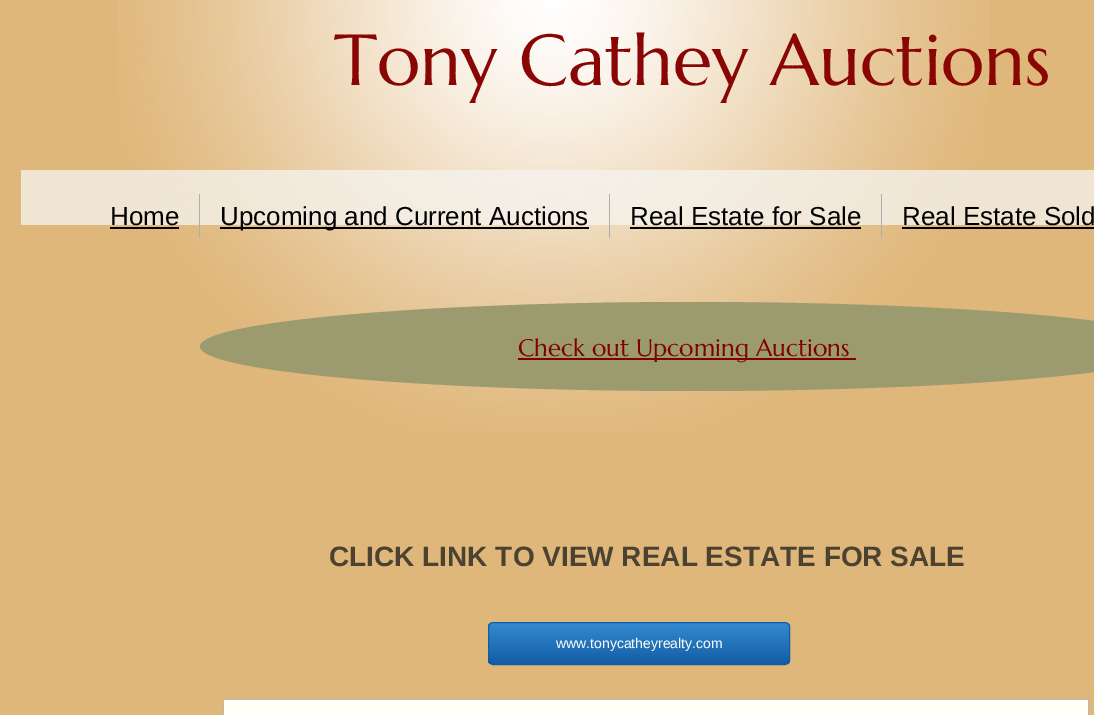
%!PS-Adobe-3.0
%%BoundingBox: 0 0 1094 715
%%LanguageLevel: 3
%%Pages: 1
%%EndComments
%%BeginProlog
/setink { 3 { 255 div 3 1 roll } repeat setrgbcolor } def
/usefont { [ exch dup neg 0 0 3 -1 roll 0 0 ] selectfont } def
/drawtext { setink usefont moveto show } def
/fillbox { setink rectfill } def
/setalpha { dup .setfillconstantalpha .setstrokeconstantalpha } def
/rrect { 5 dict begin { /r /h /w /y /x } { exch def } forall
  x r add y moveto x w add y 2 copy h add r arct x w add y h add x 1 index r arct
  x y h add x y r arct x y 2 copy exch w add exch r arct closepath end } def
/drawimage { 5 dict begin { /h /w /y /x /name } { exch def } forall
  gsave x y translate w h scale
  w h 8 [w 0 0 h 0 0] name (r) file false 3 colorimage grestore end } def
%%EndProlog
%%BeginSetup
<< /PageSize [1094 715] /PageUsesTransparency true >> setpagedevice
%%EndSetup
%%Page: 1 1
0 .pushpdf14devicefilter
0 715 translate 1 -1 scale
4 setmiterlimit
0 0 1094 715 223 183 122 fillbox
(assets/img1.rgb) 117 0 873 433 drawimage
(Tony Cathey Auctions) 334 85 /Marcellus-Regular 72 137 6 5 drawtext
0.77 setalpha
21 170 1073 55 245 243 238 fillbox
1 setalpha
199 194 1 44 174 174 174 fillbox
(Home) 110 225 /LiberationSans-Regular 26 0 0 0 drawtext
110 227 69 2 0 0 0 fillbox
609 194 1 44 174 174 174 fillbox
220 227 369 2 0 0 0 fillbox
(Upcoming and Current Auctions) 220 225 /LiberationSans-Regular 26 0 0 0 drawtext
881 194 1 44 174 174 174 fillbox
(Real Estate for Sale) 630 225 /LiberationSans-Regular 26 0 0 0 drawtext
630 227 231 2 0 0 0 fillbox
(Real Estate Sold) 902 225 /LiberationSans-Regular 26 0 0 0 drawtext
902 227 192 2 0 0 0 fillbox
155 155 111 setink
692 302 moveto 963.5 302 1184 322 1184 346.5 curveto 1184 371 963.5 391 692 391 curveto 420.5 391 200 371 200 346.5 curveto 200 322 420.5 302 692 302 curveto closepath fill
518 358 338 2 128 0 0 fillbox
(Check out Upcoming Auctions) 518 356 /Marcellus-Regular 24 128 0 0 drawtext
(CLICK LINK TO VIEW REAL ESTATE FOR SALE) 329 566 /LiberationSans-Bold 28 75 66 50 drawtext
gsave
488 622 302 43 5 rrect clip newpath
gsave 488 623 moveto 790 623 lineto 790 664 lineto 488 664 lineto closepath clip newpath
<< /ShadingType 2 /ColorSpace /DeviceRGB /Coords [639 623 639 664] /Extend [true true] /Function << /FunctionType 2 /Domain [0 1] /C0 [0.204 0.545 0.812] /C1 [0.071 0.361 0.651] /N 1 >> >> shfill grestore
grestore
18 92 166 setink
488.5 622.5 301 42 4.5 rrect stroke
(www.tonycatheyrealty.com) 556 648 /LiberationSans-Regular 14 255 255 255 drawtext
191 184 169 setink
223.5 699.5 865 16 rectstroke
224 700 864 15 254 255 247 fillbox
.poppdf14devicefilter showpage
%%EOF
